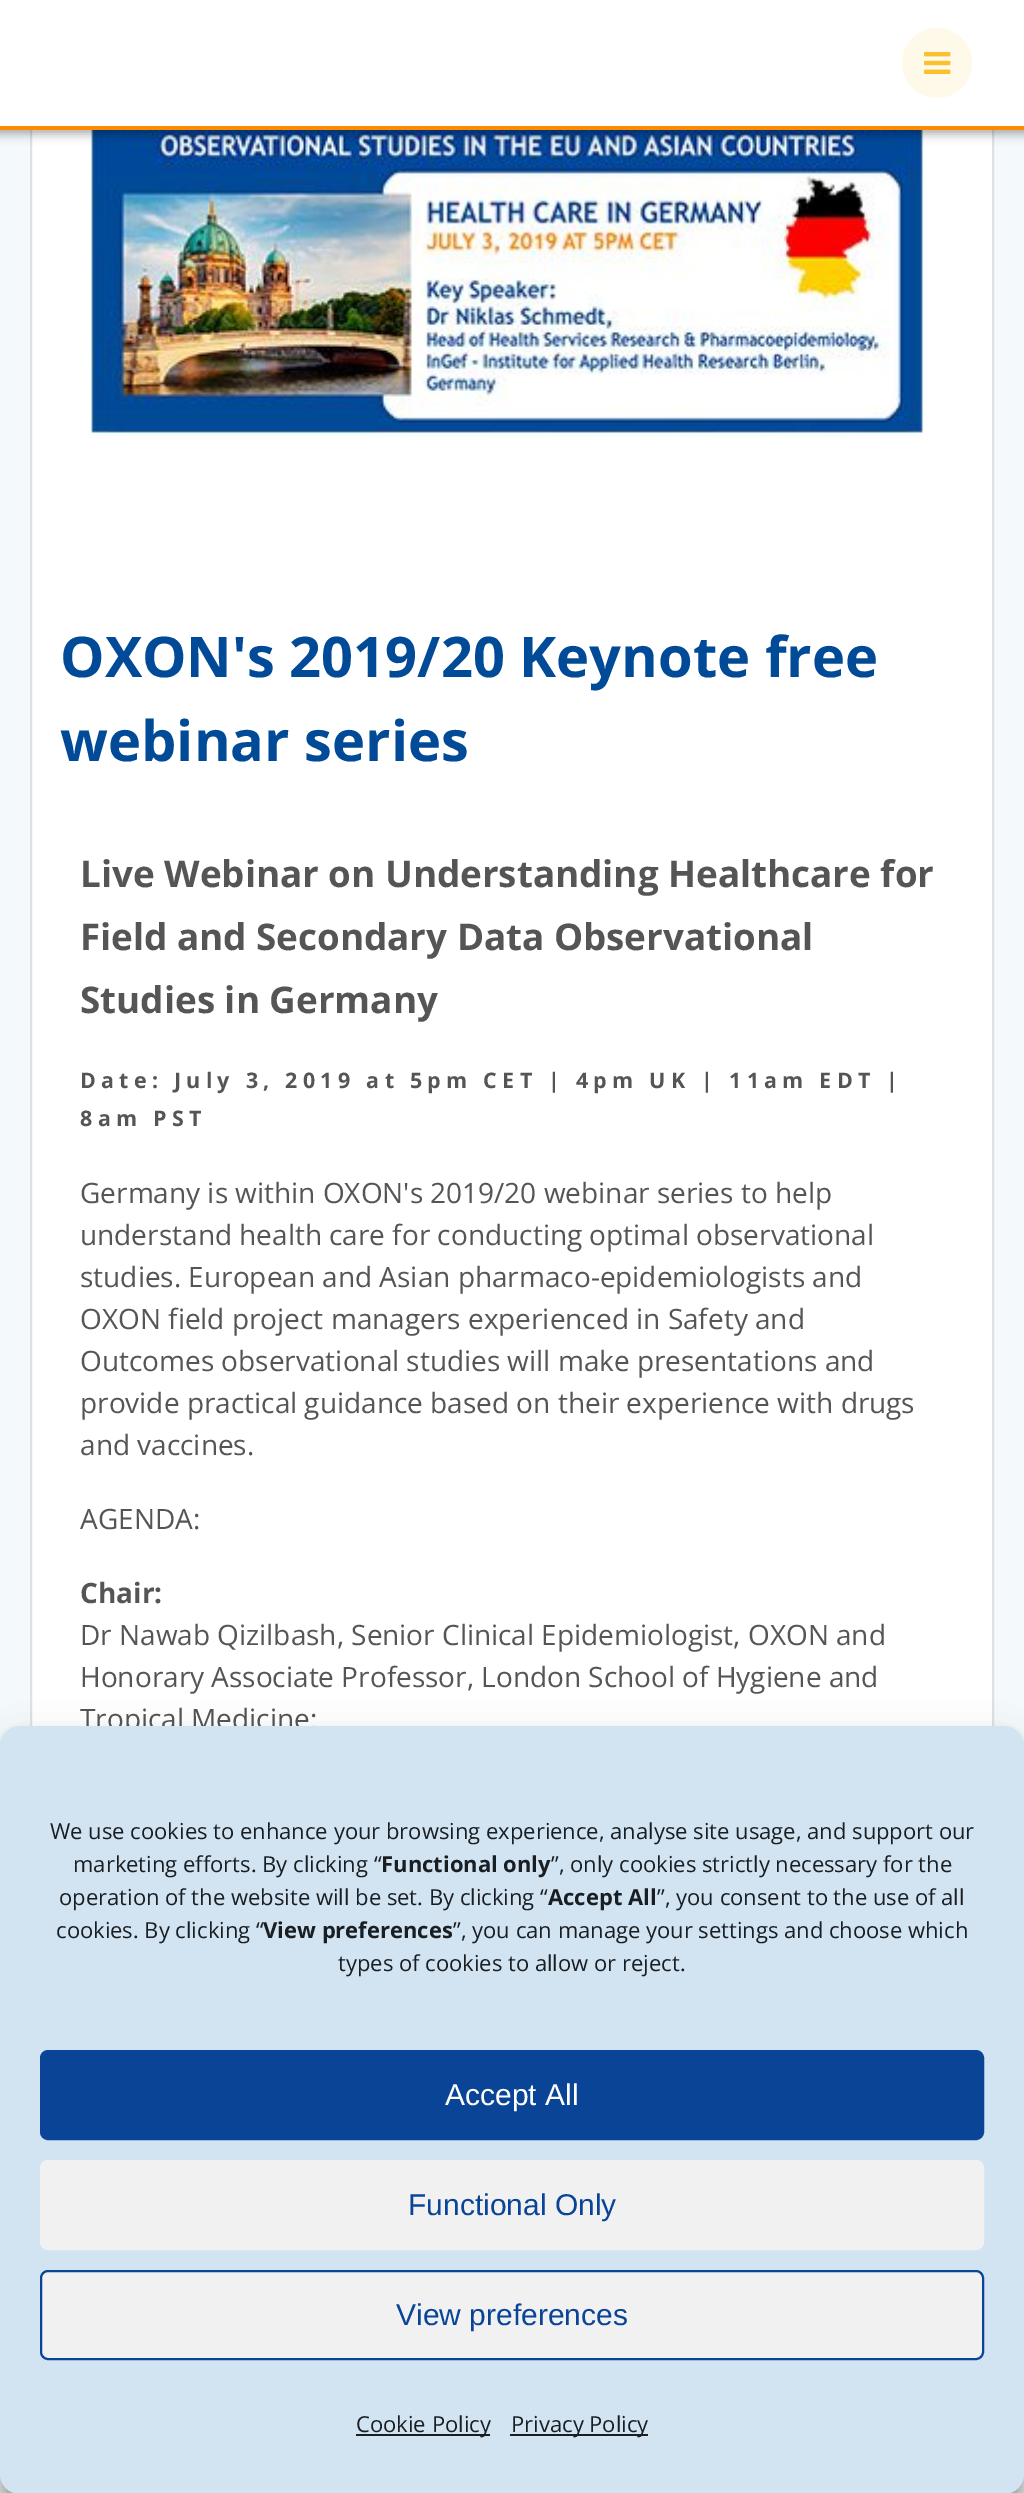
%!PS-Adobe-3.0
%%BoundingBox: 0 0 1024 2493
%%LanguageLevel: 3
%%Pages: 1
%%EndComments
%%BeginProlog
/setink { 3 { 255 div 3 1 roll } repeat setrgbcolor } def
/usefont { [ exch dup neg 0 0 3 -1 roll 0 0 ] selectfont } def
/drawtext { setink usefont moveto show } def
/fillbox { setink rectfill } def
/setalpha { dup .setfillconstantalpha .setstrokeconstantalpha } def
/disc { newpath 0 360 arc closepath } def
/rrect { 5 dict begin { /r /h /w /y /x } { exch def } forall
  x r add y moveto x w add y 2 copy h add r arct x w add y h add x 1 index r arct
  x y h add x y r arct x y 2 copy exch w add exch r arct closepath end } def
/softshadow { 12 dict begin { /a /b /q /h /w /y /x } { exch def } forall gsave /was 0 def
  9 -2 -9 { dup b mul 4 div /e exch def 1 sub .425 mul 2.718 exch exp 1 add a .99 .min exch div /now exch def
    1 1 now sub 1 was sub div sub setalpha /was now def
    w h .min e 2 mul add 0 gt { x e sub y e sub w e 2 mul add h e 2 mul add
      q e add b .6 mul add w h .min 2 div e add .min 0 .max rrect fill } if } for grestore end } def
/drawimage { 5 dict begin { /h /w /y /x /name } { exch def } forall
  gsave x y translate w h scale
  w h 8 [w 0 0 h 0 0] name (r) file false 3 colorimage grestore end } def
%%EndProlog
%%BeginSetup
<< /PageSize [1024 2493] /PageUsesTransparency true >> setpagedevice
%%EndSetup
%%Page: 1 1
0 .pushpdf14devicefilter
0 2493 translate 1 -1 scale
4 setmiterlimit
0 0 1024 2493 244 249 252 fillbox
32 130 960 1596 255 255 255 fillbox
224 225 225 setink
2 setlinewidth
31 -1 962 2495 rectstroke
(assets/img2.rgb) 89 130 836 309 drawimage
0 0 0 setink
-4 -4 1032 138 0 5 0.33 softshadow
0 0 1024 126 255 255 255 fillbox
0 126 1024 4 255 137 0 fillbox
255 249 234 setink
937 63 35 disc fill
(assets/img1.rgb) 924 52 27 22 drawimage
(OXON's 2019/20 Keynote free) 60 677 /OpenSans-Bold 56 0 74 151 drawtext
(webinar series) 60 761 /OpenSans-Bold 56 0 74 151 drawtext
(Live Webinar on Understanding Healthcare for) 80 887 /OpenSans-Bold 36.75 85 85 85 drawtext
(Field and Secondary Data Observational) 80 950 /OpenSans-Bold 36.75 85 85 85 drawtext
(Studies in Germany) 80 1013 /OpenSans-Bold 36.75 85 85 85 drawtext
/OpenSans-Bold 21.45 usefont
80 1088 moveto 5.25 0 (Date: July 3, 2019 at 5pm CET | 4pm UK | 11am EDT |) ashow
80 1126 moveto 5.25 0 (8am PST) ashow
(Germany is within OXON's 2019/20 webinar series to help) 80 1203 /OpenSans-Regular 28 85 85 85 drawtext
(understand health care for conducting optimal observational) 80 1245 /OpenSans-Regular 28 85 85 85 drawtext
(studies. European and Asian pharmaco-epidemiologists and) 80 1287 /OpenSans-Regular 28 85 85 85 drawtext
(OXON field project managers experienced in Safety and) 80 1329 /OpenSans-Regular 28 85 85 85 drawtext
(Outcomes observational studies will make presentations and) 80 1371 /OpenSans-Regular 28 85 85 85 drawtext
(provide practical guidance based on their experience with drugs) 80 1413 /OpenSans-Regular 28 85 85 85 drawtext
(and vaccines.) 80 1455 /OpenSans-Regular 28 85 85 85 drawtext
(AGENDA:) 80 1529 /OpenSans-Regular 28 85 85 85 drawtext
(Chair:) 80 1603 /OpenSans-Bold 28 85 85 85 drawtext
(Dr Nawab Qizilbash, Senior Clinical Epidemiologist, OXON and) 80 1645 /OpenSans-Regular 28 85 85 85 drawtext
(Honorary Associate Professor, London School of Hygiene and) 80 1687 /OpenSans-Regular 28 85 85 85 drawtext
(Tropical Medicine:) 80 1729 /OpenSans-Regular 28 85 85 85 drawtext
0 0 0 setink
0 1738 1024 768 20 6 0.23 softshadow
0 1746 1024 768 20 20 0.19 softshadow
210 228 242 setink
0 1726 1024 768 20 rrect fill
(We use cookies to enhance your browsing experience, analyse site usage, and support our) 50 1839 /OpenSans-Regular 22 25 30 35 drawtext
(marketing efforts. By clicking “) 73 1872 /OpenSans-Regular 22 25 30 35 drawtext
(Functional only) 381 1872 /OpenSans-Bold 22 25 30 35 drawtext
(”, only cookies strictly necessary for the) 551 1872 /OpenSans-Regular 22 25 30 35 drawtext
(operation of the website will be set. By clicking “) 59 1905 /OpenSans-Regular 22 25 30 35 drawtext
(Accept All) 548 1905 /OpenSans-Bold 22 25 30 35 drawtext
(”, you consent to the use of all) 657 1905 /OpenSans-Regular 22 25 30 35 drawtext
(cookies. By clicking “) 56 1938 /OpenSans-Regular 22 25 30 35 drawtext
(View preferences) 263 1938 /OpenSans-Bold 22 25 30 35 drawtext
(”, you can manage your settings and choose which) 453 1938 /OpenSans-Regular 22 25 30 35 drawtext
(types of cookies to allow or reject.) 338 1971 /OpenSans-Regular 22 25 30 35 drawtext
10 68 151 setink
41 2051 942 88 7 rrect gsave fill grestore
stroke
(Accept All) 445 2105 /LiberationSans-Regular 30 255 255 255 drawtext
241 241 241 setink
41 2161 942 88 7 rrect gsave fill grestore
stroke
(Functional Only) 408 2215 /LiberationSans-Regular 30 10 68 151 drawtext
241 241 241 setink
41 2271 942 88 7 rrect gsave fill grestore
10 68 151 setink
stroke
(View preferences) 396 2325 /LiberationSans-Regular 30 10 68 151 drawtext
356 2434 134 2 25 30 35 fillbox
(Cookie Policy) 356 2432 /OpenSans-Regular 22 25 30 35 drawtext
510 2434 138 2 25 30 35 fillbox
(Privacy Policy) 511 2432 /OpenSans-Regular 22 25 30 35 drawtext
.poppdf14devicefilter showpage
%%EOF
